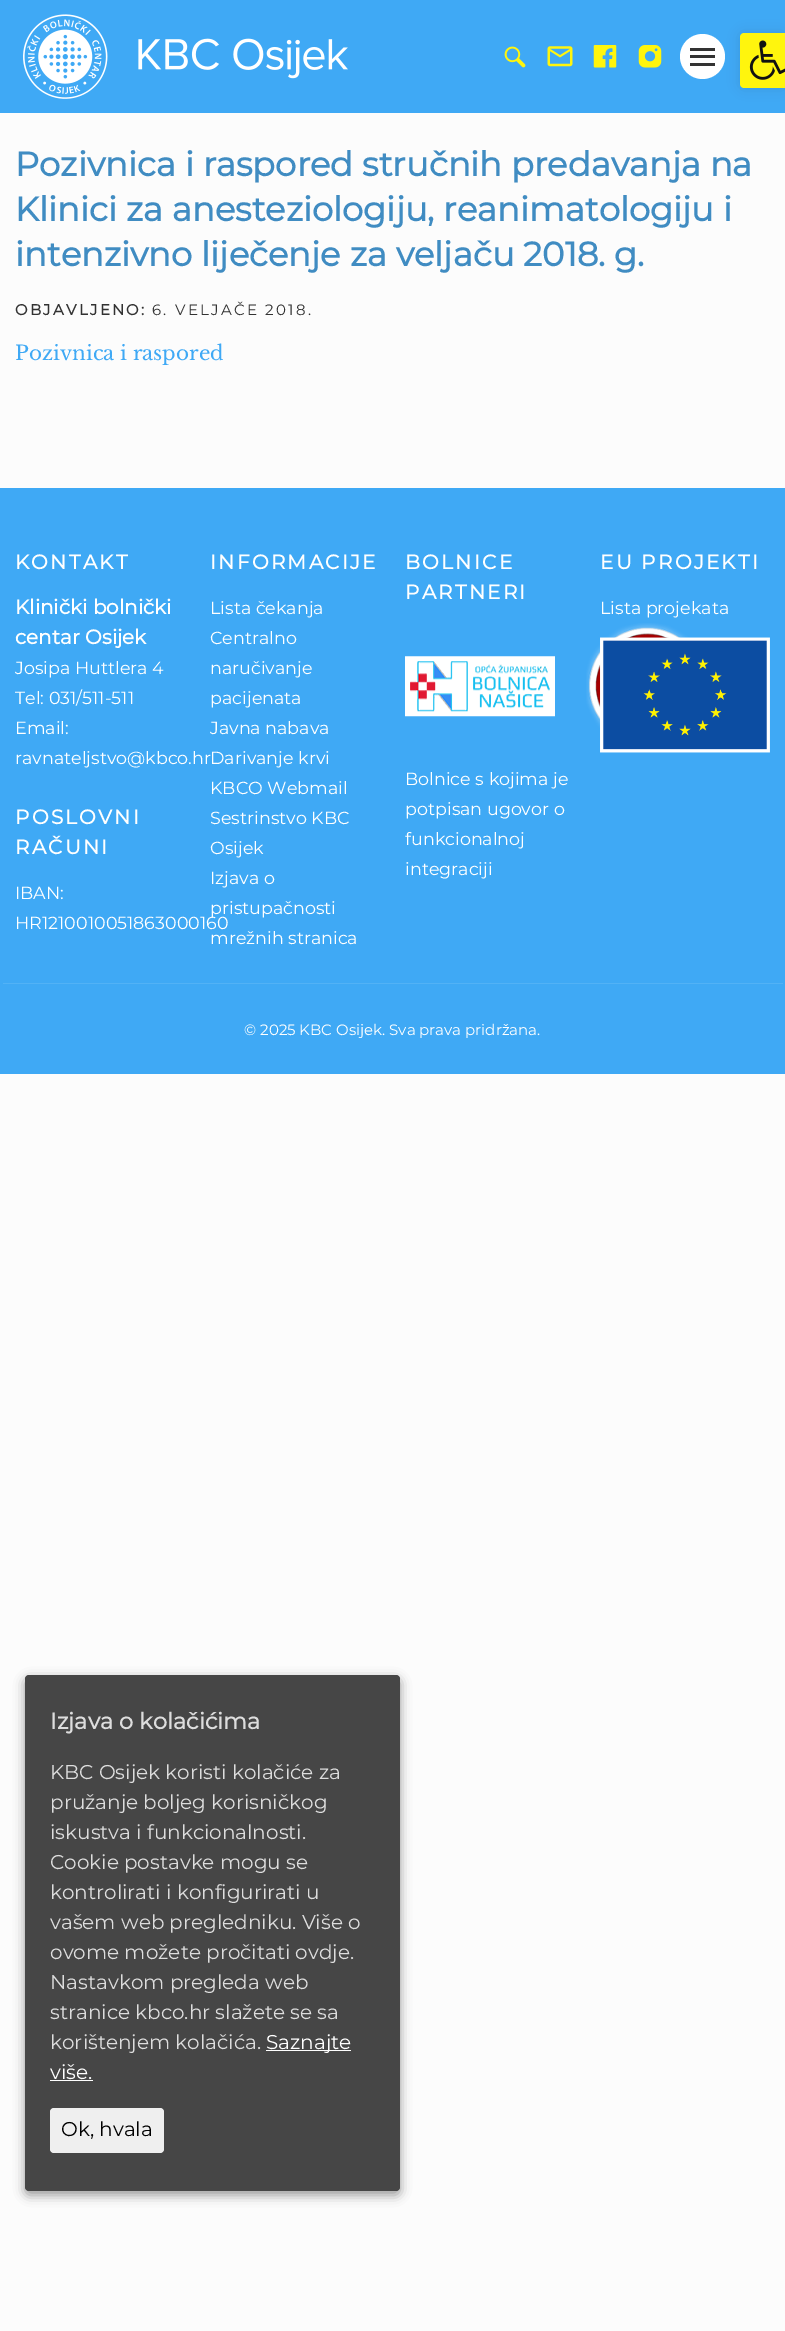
%!PS-Adobe-3.0
%%BoundingBox: 0 0 785 2331
%%LanguageLevel: 3
%%Pages: 1
%%EndComments
%%BeginProlog
/setink { 3 { 255 div 3 1 roll } repeat setrgbcolor } def
/usefont { [ exch dup neg 0 0 3 -1 roll 0 0 ] selectfont } def
/drawtext { setink usefont moveto show } def
/fillbox { setink rectfill } def
/setalpha { dup .setfillconstantalpha .setstrokeconstantalpha } def
/disc { newpath 0 360 arc closepath } def
/rrect { 5 dict begin { /r /h /w /y /x } { exch def } forall
  x r add y moveto x w add y 2 copy h add r arct x w add y h add x 1 index r arct
  x y h add x y r arct x y 2 copy exch w add exch r arct closepath end } def
/softshadow { 12 dict begin { /a /b /q /h /w /y /x } { exch def } forall gsave /was 0 def
  9 -2 -9 { dup b mul 4 div /e exch def 1 sub .425 mul 2.718 exch exp 1 add a .99 .min exch div /now exch def
    1 1 now sub 1 was sub div sub setalpha /was now def
    w h .min e 2 mul add 0 gt { x e sub y e sub w e 2 mul add h e 2 mul add
      q e add b .6 mul add w h .min 2 div e add .min 0 .max rrect fill } if } for grestore end } def
/drawimage { 5 dict begin { /h /w /y /x /name } { exch def } forall
  gsave x y translate w h scale
  w h 8 [w 0 0 h 0 0] name (r) file false 3 colorimage grestore end } def
%%EndProlog
%%BeginSetup
<< /PageSize [785 2331] /PageUsesTransparency true >> setpagedevice
%%EndSetup
%%Page: 1 1
0 .pushpdf14devicefilter
0 2331 translate 1 -1 scale
4 setmiterlimit
0 0 785 2331 252 252 252 fillbox
0 0 785 113 63 169 245 fillbox
(assets/img1.rgb) 23 14 325 85 drawimage
(assets/img2.rgb) 504 46 22 22 drawimage
(assets/img3.rgb) 547 46 26 21 drawimage
(assets/img4.rgb) 593 45 24 23 drawimage
(assets/img5.rgb) 638 45 24 23 drawimage
255 255 255 setink
702.5 56.5 22.5 disc fill
690 55 25 3 51 51 51 fillbox
690 48 25 3 51 51 51 fillbox
690 63 25 3 51 51 51 fillbox
0 0 0 setink
740 33 45 55 4 6 0.1 softshadow
255 245 13 setink
744 33 moveto 785 33 lineto 785 88 lineto 744 88 lineto 742 88 740 86 740 84 curveto 740 37 lineto 740 35 742 33 744 33 curveto closepath fill
(assets/img6.rgb) 749 40 36 40 drawimage
(Pozivnica i raspored stručnih predavanja na) 15 176 /Montserrat-Bold 33.75 64 140 194 drawtext
(Klinici za anesteziologiju, reanimatologiju i) 15 221 /Montserrat-Bold 33.75 64 140 194 drawtext
(intenzivno liječenje za veljaču 2018. g.) 15 266 /Montserrat-Bold 33.75 64 140 194 drawtext
/Montserrat-Bold 15 usefont
50 50 50 setink
15 315 moveto 2.25 0 (OBJAVLJENO:) ashow
/Montserrat-Thin 15 usefont
152 315 moveto 2.25 0 (6. VELJAČE 2018.) ashow
(Pozivnica i raspored) 15 360 /LibreBaskerville-Regular 20 63 169 245 drawtext
0 488 785 586 63 169 245 fillbox
3 983 780 1 82 178 246 fillbox
/Montserrat-Bold 20 usefont
255 255 255 setink
15 569 moveto 2.25 0 (KONTAKT) ashow
(Klinički bolnički) 15 614 /Montserrat-Bold 20 255 255 255 drawtext
(centar Osijek) 15 644 /Montserrat-Bold 20 255 255 255 drawtext
(Josipa Huttlera 4) 15 674 /Montserrat-Thin 17.5 255 255 255 drawtext
(Tel: 031/511-511) 15 704 /Montserrat-Thin 17.5 255 255 255 drawtext
(Email:) 15 734 /Montserrat-Thin 17.5 255 255 255 drawtext
(ravnateljstvo@kbco.hr) 15 764 /Montserrat-Thin 17.5 255 255 255 drawtext
/Montserrat-Bold 20 usefont
15 824 moveto 2.25 0 (POSLOVNI) ashow
15 854 moveto 2.25 0 (RAČUNI) ashow
(IBAN:) 15 899 /Montserrat-Thin 17.5 255 255 255 drawtext
(HR1210010051863000160) 15 929 /Montserrat-Thin 17.5 255 255 255 drawtext
/Montserrat-Bold 20 usefont
210 569 moveto 2.25 0 (INFORMACIJE) ashow
(Lista čekanja) 210 614 /Montserrat-Thin 17.5 255 255 255 drawtext
(Centralno) 210 644 /Montserrat-Thin 17.5 255 255 255 drawtext
(naručivanje) 210 674 /Montserrat-Thin 17.5 255 255 255 drawtext
(pacijenata) 210 704 /Montserrat-Thin 17.5 255 255 255 drawtext
(Javna nabava) 210 734 /Montserrat-Thin 17.5 255 255 255 drawtext
(Darivanje krvi) 210 764 /Montserrat-Thin 17.5 255 255 255 drawtext
(KBCO Webmail) 210 794 /Montserrat-Thin 17.5 255 255 255 drawtext
(Sestrinstvo KBC) 210 824 /Montserrat-Thin 17.5 255 255 255 drawtext
(Osijek) 210 854 /Montserrat-Thin 17.5 255 255 255 drawtext
(Izjava o) 210 884 /Montserrat-Thin 17.5 255 255 255 drawtext
(pristupačnosti) 210 914 /Montserrat-Thin 17.5 255 255 255 drawtext
(mrežnih stranica) 210 944 /Montserrat-Thin 17.5 255 255 255 drawtext
/Montserrat-Bold 20 usefont
405 569 moveto 2.25 0 (BOLNICE) ashow
405 599 moveto 2.25 0 (PARTNERI) ashow
(assets/img7.rgb) 405 656 150 61 drawimage
(assets/img8.rgb) 586 623 102 105 drawimage
(Bolnice s kojima je) 405 785 /Montserrat-Thin 17.5 255 255 255 drawtext
(potpisan ugovor o) 405 815 /Montserrat-Thin 17.5 255 255 255 drawtext
(funkcionalnoj) 405 845 /Montserrat-Thin 17.5 255 255 255 drawtext
(integraciji) 405 875 /Montserrat-Thin 17.5 255 255 255 drawtext
/Montserrat-Bold 20 usefont
600 569 moveto 2.25 0 (EU PROJEKTI) ashow
(Lista projekata) 600 614 /Montserrat-Thin 17.5 255 255 255 drawtext
(assets/img9.rgb) 600 637 170 116 drawimage
(© 2025 KBC Osijek. Sva prava pridržana.) 244 1035 /Montserrat-Thin 15 255 255 255 drawtext
0 0 0 setink
25 1679 375 516 4 5.5 0.4 softshadow
70 70 70 setink
25 1675 375 516 4 rrect fill
(Izjava o kolačićima) 50 1729 /Montserrat-Bold 22.5 221 221 221 drawtext
(KBC Osijek koristi kolačiće za) 50 1779 /Montserrat-Thin 20 221 221 221 drawtext
(pružanje boljeg korisničkog) 50 1809 /Montserrat-Thin 20 221 221 221 drawtext
(iskustva i funkcionalnosti.) 50 1839 /Montserrat-Thin 20 221 221 221 drawtext
(Cookie postavke mogu se) 50 1869 /Montserrat-Thin 20 221 221 221 drawtext
(kontrolirati i konfigurirati u) 50 1899 /Montserrat-Thin 20 221 221 221 drawtext
(vašem web pregledniku. Više o) 50 1929 /Montserrat-Thin 20 221 221 221 drawtext
(ovome možete pročitati ovdje.) 50 1959 /Montserrat-Thin 20 221 221 221 drawtext
(Nastavkom pregleda web) 50 1989 /Montserrat-Thin 20 221 221 221 drawtext
(stranice kbco.hr slažete se sa) 50 2019 /Montserrat-Thin 20 221 221 221 drawtext
(korištenjem kolačića.) 50 2049 /Montserrat-Thin 20 221 221 221 drawtext
266 2050 85 1 255 255 255 fillbox
(Saznajte) 266 2049 /Montserrat-Thin 20 255 255 255 drawtext
(više.) 50 2079 /Montserrat-Thin 20 255 255 255 drawtext
50 2080 43 1 255 255 255 fillbox
239 239 239 setink
50 2108 114 45 4 rrect fill
(Ok, hvala) 61 2136 /Montserrat-Thin 20 0 0 0 drawtext
.poppdf14devicefilter showpage
%%EOF
